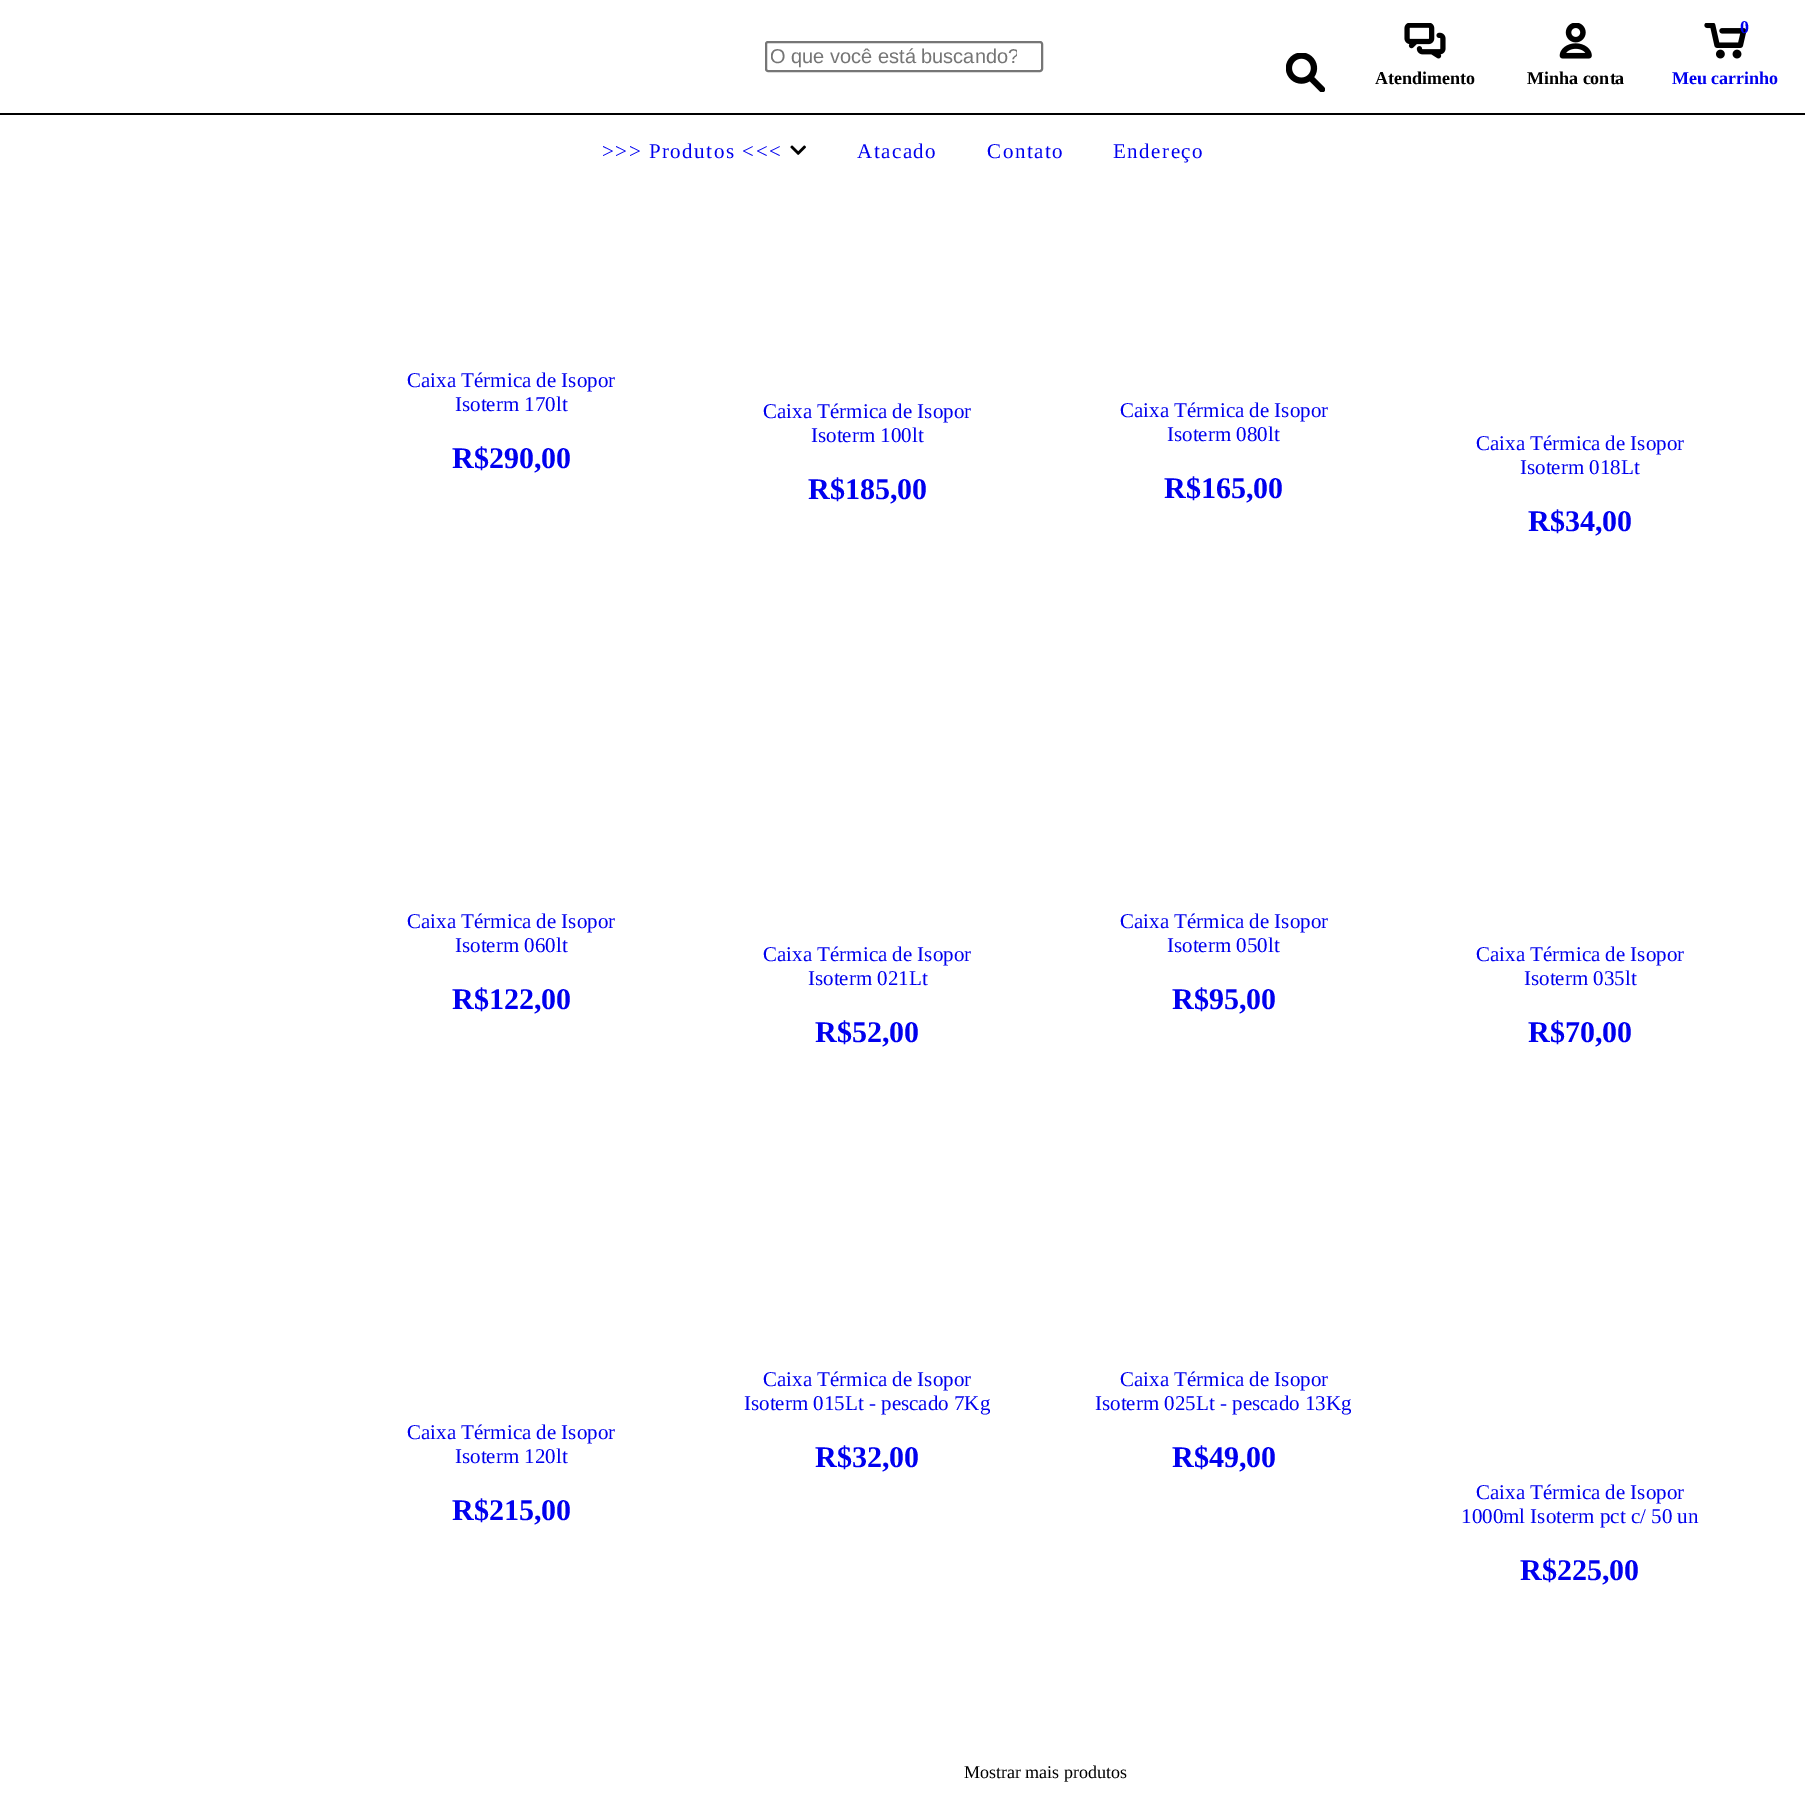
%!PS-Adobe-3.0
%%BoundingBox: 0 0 1805 1805
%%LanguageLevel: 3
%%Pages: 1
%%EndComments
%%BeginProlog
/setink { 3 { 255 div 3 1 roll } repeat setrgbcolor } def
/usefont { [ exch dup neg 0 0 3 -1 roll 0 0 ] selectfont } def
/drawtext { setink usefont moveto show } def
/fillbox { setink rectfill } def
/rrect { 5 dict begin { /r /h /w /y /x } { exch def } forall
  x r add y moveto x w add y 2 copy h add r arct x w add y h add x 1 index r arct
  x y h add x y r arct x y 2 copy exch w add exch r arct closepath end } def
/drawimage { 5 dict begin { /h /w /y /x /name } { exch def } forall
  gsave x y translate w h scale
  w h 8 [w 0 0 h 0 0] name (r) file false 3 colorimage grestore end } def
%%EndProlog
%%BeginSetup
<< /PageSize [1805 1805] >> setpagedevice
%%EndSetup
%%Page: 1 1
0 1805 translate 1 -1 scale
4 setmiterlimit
0 0 1805 1805 255 255 255 fillbox
118 118 118 setink
2 setlinewidth
766 42 276 29 2 rrect stroke
gsave
771 45 246 23 rectclip
(O que você está buscando?) 770 63 /LiberationSans-Regular 20 117 117 117 drawtext
grestore
(assets/img1.rgb) 1286 53 39 39 drawimage
(assets/img2.rgb) 1404 23 42 36 drawimage
(Atendimento) 1375 84 /LiberationSerif-Bold 18 0 0 0 drawtext
(assets/img3.rgb) 1559 23 33 36 drawimage
(Minha conta) 1527 84 /LiberationSerif-Bold 18 0 0 0 drawtext
(assets/img4.rgb) 1704 23 43 36 drawimage
(0) 1740 33 /LiberationSerif-Bold 18 0 0 238 drawtext
(Meu carrinho) 1672 84 /LiberationSerif-Bold 18 0 0 238 drawtext
0 113 1805 2 0 0 0 fillbox
/LiberationSerif-Regular 21 usefont
0 0 238 setink
602 158 moveto 1.5 0 (>>> Produtos <<<) ashow
(assets/img5.rgb) 790 145 16 10 drawimage
857 158 moveto 1.5 0 (Atacado) ashow
987 158 moveto 1.5 0 (Contato) ashow
1113 158 moveto 1.5 0 (Endereço) ashow
(Caixa Térmica de Isopor) 407 387 /LiberationSerif-Regular 21 0 0 238 drawtext
(Isoterm 170lt) 455 411 /LiberationSerif-Regular 21 0 0 238 drawtext
(R$290,00) 452 468 /LiberationSerif-Bold 30 0 0 238 drawtext
(Caixa Térmica de Isopor) 763 418 /LiberationSerif-Regular 21 0 0 238 drawtext
(Isoterm 100lt) 811 442 /LiberationSerif-Regular 21 0 0 238 drawtext
(R$185,00) 808 499 /LiberationSerif-Bold 30 0 0 238 drawtext
(Caixa Térmica de Isopor) 1120 417 /LiberationSerif-Regular 21 0 0 238 drawtext
(Isoterm 080lt) 1167 441 /LiberationSerif-Regular 21 0 0 238 drawtext
(R$165,00) 1164 498 /LiberationSerif-Bold 30 0 0 238 drawtext
(Caixa Térmica de Isopor) 1476 450 /LiberationSerif-Regular 21 0 0 238 drawtext
(Isoterm 018Lt) 1520 474 /LiberationSerif-Regular 21 0 0 238 drawtext
(R$34,00) 1528 531 /LiberationSerif-Bold 30 0 0 238 drawtext
(Caixa Térmica de Isopor) 407 928 /LiberationSerif-Regular 21 0 0 238 drawtext
(Isoterm 060lt) 455 952 /LiberationSerif-Regular 21 0 0 238 drawtext
(R$122,00) 452 1009 /LiberationSerif-Bold 30 0 0 238 drawtext
(Caixa Térmica de Isopor) 763 961 /LiberationSerif-Regular 21 0 0 238 drawtext
(Isoterm 021Lt) 808 985 /LiberationSerif-Regular 21 0 0 238 drawtext
(R$52,00) 815 1042 /LiberationSerif-Bold 30 0 0 238 drawtext
(Caixa Térmica de Isopor) 1120 928 /LiberationSerif-Regular 21 0 0 238 drawtext
(Isoterm 050lt) 1167 952 /LiberationSerif-Regular 21 0 0 238 drawtext
(R$95,00) 1172 1009 /LiberationSerif-Bold 30 0 0 238 drawtext
(Caixa Térmica de Isopor) 1476 961 /LiberationSerif-Regular 21 0 0 238 drawtext
(Isoterm 035lt) 1524 985 /LiberationSerif-Regular 21 0 0 238 drawtext
(R$70,00) 1528 1042 /LiberationSerif-Bold 30 0 0 238 drawtext
(Caixa Térmica de Isopor) 407 1439 /LiberationSerif-Regular 21 0 0 238 drawtext
(Isoterm 120lt) 455 1463 /LiberationSerif-Regular 21 0 0 238 drawtext
(R$215,00) 452 1520 /LiberationSerif-Bold 30 0 0 238 drawtext
(Caixa Térmica de Isopor) 763 1386 /LiberationSerif-Regular 21 0 0 238 drawtext
(Isoterm 015Lt - pescado 7Kg) 744 1410 /LiberationSerif-Regular 21 0 0 238 drawtext
(R$32,00) 815 1467 /LiberationSerif-Bold 30 0 0 238 drawtext
(Caixa Térmica de Isopor) 1120 1386 /LiberationSerif-Regular 21 0 0 238 drawtext
(Isoterm 025Lt - pescado 13Kg) 1095 1410 /LiberationSerif-Regular 21 0 0 238 drawtext
(R$49,00) 1172 1467 /LiberationSerif-Bold 30 0 0 238 drawtext
(Caixa Térmica de Isopor) 1476 1499 /LiberationSerif-Regular 21 0 0 238 drawtext
(1000ml Isoterm pct c/ 50 un) 1461 1523 /LiberationSerif-Regular 21 0 0 238 drawtext
(R$225,00) 1520 1580 /LiberationSerif-Bold 30 0 0 238 drawtext
(Mostrar mais produtos) 964 1778 /LiberationSerif-Regular 18 0 0 0 drawtext
showpage
%%EOF
